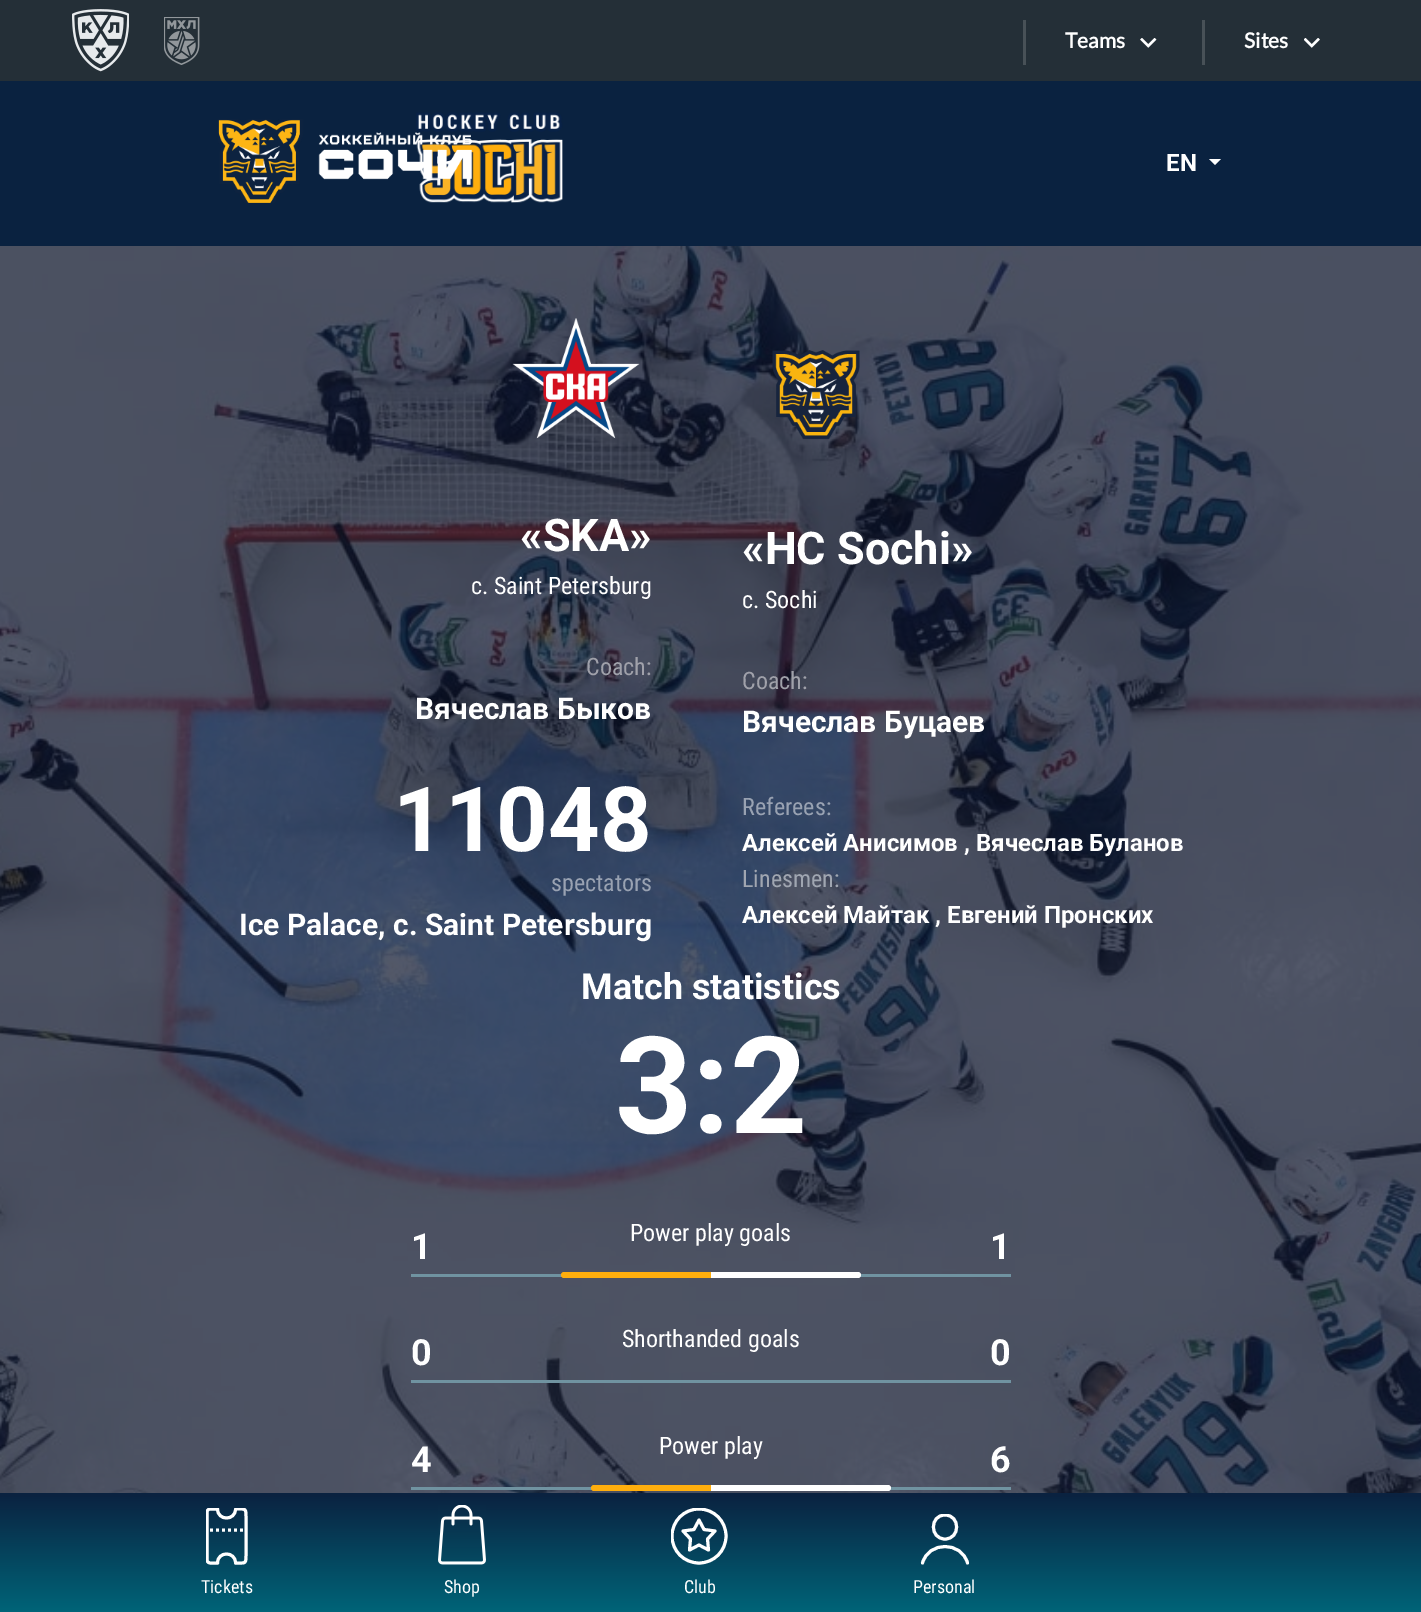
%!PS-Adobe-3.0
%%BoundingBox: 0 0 1421 1612
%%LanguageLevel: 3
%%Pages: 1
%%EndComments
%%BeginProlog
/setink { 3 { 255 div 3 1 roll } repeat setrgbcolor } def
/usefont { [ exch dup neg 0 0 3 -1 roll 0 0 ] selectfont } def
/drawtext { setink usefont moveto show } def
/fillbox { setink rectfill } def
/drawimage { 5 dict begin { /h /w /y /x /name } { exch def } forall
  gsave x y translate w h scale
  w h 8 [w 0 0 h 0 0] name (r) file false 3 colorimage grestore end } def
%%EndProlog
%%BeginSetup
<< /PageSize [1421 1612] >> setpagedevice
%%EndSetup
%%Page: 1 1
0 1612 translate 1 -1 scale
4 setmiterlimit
0 0 1421 1612 10 34 64 fillbox
0 0 1421 81 36 47 55 fillbox
(assets/img1.rgb) 72 9 57 63 drawimage
(assets/img2.rgb) 164 17 36 48 drawimage
1023 20 3 45 72 81 87 fillbox
(Teams) 1065 48 /Lato-Bold 21 255 255 255 drawtext
(assets/img3.rgb) 1140 38 17 10 drawimage
1202 20 3 45 72 81 87 fillbox
(Sites) 1244 48 /Lato-Bold 21 255 255 255 drawtext
(assets/img4.rgb) 1304 38 16 10 drawimage
(assets/img6.rgb) 416 112 147 91 drawimage
(assets/img5.rgb) 218 119 254 84 drawimage
(EN) 1166 171 /Roboto-Bold 24 255 255 255 drawtext
1209 159 moveto 1221 159 lineto 1215 165 lineto closepath fill
(assets/img7.rgb) 0 246 1421 1247 drawimage
(assets/img8.rgb) 512 318 128 121 drawimage
(«SKA») 520 551 /Roboto-Bold 45 255 255 255 drawtext
(c. Saint Petersburg) 471 594 /RobotoCondensed-Regular 24 255 255 255 drawtext
(Coach:) 586 675 /RobotoCondensed-Regular 24 160 161 170 drawtext
(Вячеслав Быков) 415 719 /Roboto-Bold 30 255 255 255 drawtext
(11048) 393 851 /Roboto-Bold 90 255 255 255 drawtext
(spectators) 551 891 /RobotoCondensed-Regular 24 153 162 178 drawtext
(Ice Palace, c. Saint Petersburg) 239 935 /Roboto-Bold 30 255 255 255 drawtext
(assets/img9.rgb) 772 350 88 90 drawimage
(«HC Sochi») 742 564 /Roboto-Bold 45 255 255 255 drawtext
(c. Sochi) 742 608 /RobotoCondensed-Regular 24 255 255 255 drawtext
(Coach:) 742 689 /RobotoCondensed-Regular 24 160 161 170 drawtext
(Вячеслав Буцаев) 742 732 /Roboto-Bold 30 255 255 255 drawtext
(Referees:) 742 815 /RobotoCondensed-Regular 24 153 162 178 drawtext
(Алексей Анисимов , Вячеслав Буланов) 742 851 /Roboto-Bold 24 255 255 255 drawtext
(Linesmen:) 742 887 /RobotoCondensed-Regular 24 160 166 177 drawtext
(Алексей Майтак , Евгений Пронских) 742 923 /Roboto-Bold 24 255 255 255 drawtext
(Match statistics) 581 999 /Roboto-Bold 36 255 255 255 drawtext
(3:2) 615 1133 /Roboto-Bold 135 255 255 255 drawtext
(Power play goals) 630 1241 /RobotoCondensed-Regular 24 255 255 255 drawtext
(1) 411 1259 /Roboto-Bold 36 255 255 255 drawtext
(1) 990 1259 /Roboto-Bold 36 255 255 255 drawtext
411 1274 600 3 112 147 161 fillbox
255 174 13 setink
564 1272 moveto 711 1272 lineto 711 1278 lineto 564 1278 lineto 562.5 1278 561 1276.5 561 1275 curveto 561 1273.5 562.5 1272 564 1272 curveto closepath fill
255 255 255 setink
711 1272 moveto 858 1272 lineto 859.5 1272 861 1273.5 861 1275 curveto 861 1276.5 859.5 1278 858 1278 curveto 711 1278 lineto closepath fill
(Shorthanded goals) 622 1347 /RobotoCondensed-Regular 24 255 255 255 drawtext
(0) 411 1365 /Roboto-Bold 36 255 255 255 drawtext
(0) 990 1365 /Roboto-Bold 36 255 255 255 drawtext
411 1380 600 3 112 147 161 fillbox
(Power play) 659 1454 /RobotoCondensed-Regular 24 255 255 255 drawtext
(4) 411 1472 /Roboto-Bold 36 255 255 255 drawtext
(6) 990 1472 /Roboto-Bold 36 255 255 255 drawtext
411 1487 600 3 112 147 161 fillbox
255 174 13 setink
594 1485 moveto 711 1485 lineto 711 1491 lineto 594 1491 lineto 592.5 1491 591 1489.5 591 1488 curveto 591 1486.5 592.5 1485 594 1485 curveto closepath fill
255 255 255 setink
711 1485 moveto 888 1485 lineto 889.5 1485 891 1486.5 891 1488 curveto 891 1489.5 889.5 1491 888 1491 curveto 711 1491 lineto closepath fill
gsave 0 1497 moveto 1421 1497 lineto 1421 1612 lineto 0 1612 lineto closepath clip newpath
<< /ShadingType 2 /ColorSpace /DeviceRGB /Coords [711 1493 711 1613] /Extend [true true] /Function << /FunctionType 2 /Domain [0 1] /C0 [0.039 0.133 0.251] /C1 [0 0.396 0.471] /N 1 >> >> shfill grestore
gsave
206 1508 42 57 rectclip
3 setlinewidth
1 setlinecap
1 setlinejoin
207 1560 moveto 207 1512 lineto 207 1510.5 208.5 1509 210 1509 curveto 217.5 1509 lineto 217.5 1521 235.5 1521 235.5 1509 curveto 246.5 1509 246 1507.5 246 1520 curveto 246 1552 lineto 246 1564.5 246.5 1563 235.5 1563 curveto 235.5 1551 217.5 1551 217.5 1563 curveto 215 1563 207 1564.5 207 1560 curveto closepath stroke
grestore
3 setlinewidth
[3 3] 0 setdash
210 1530 moveto 243 1530 lineto stroke
(Tickets) 201 1593 /RobotoCondensed-Regular 18 255 255 255 drawtext
(assets/img10.rgb) 438 1505 48 60 drawimage
(Shop) 444 1593 /RobotoCondensed-Regular 18 255 255 255 drawtext
gsave
671 1508 57 57 rectclip
[] 0 setdash
699 1563 moveto 714 1563 726 1551 726 1536 curveto 726 1521 714 1509 699 1509 curveto 684 1509 672 1521 672 1536 curveto 672 1551 684 1563 699 1563 curveto closepath stroke
grestore
1 setlinecap
1 setlinejoin
[] 0 setdash
699 1520 moveto 704 1529.5 lineto 715 1531 lineto 707.5 1539 lineto 708.5 1550 lineto 699 1545 lineto 689.5 1550 lineto 690.5 1539 lineto 683 1531 lineto 694 1529.5 lineto closepath stroke
(Club) 684 1593 /RobotoCondensed-Regular 18 255 255 255 drawtext
gsave
921 1514 48 51 rectclip
945 1539 moveto 960.5 1539 960.5 1515 945 1515 curveto 929.5 1515 929.5 1539 945 1539 curveto closepath stroke
grestore
922.5 1563 moveto 928.5 1541 961.5 1541 967.5 1563 curveto stroke
(Personal) 913 1593 /RobotoCondensed-Regular 18 255 255 255 drawtext
showpage
%%EOF
